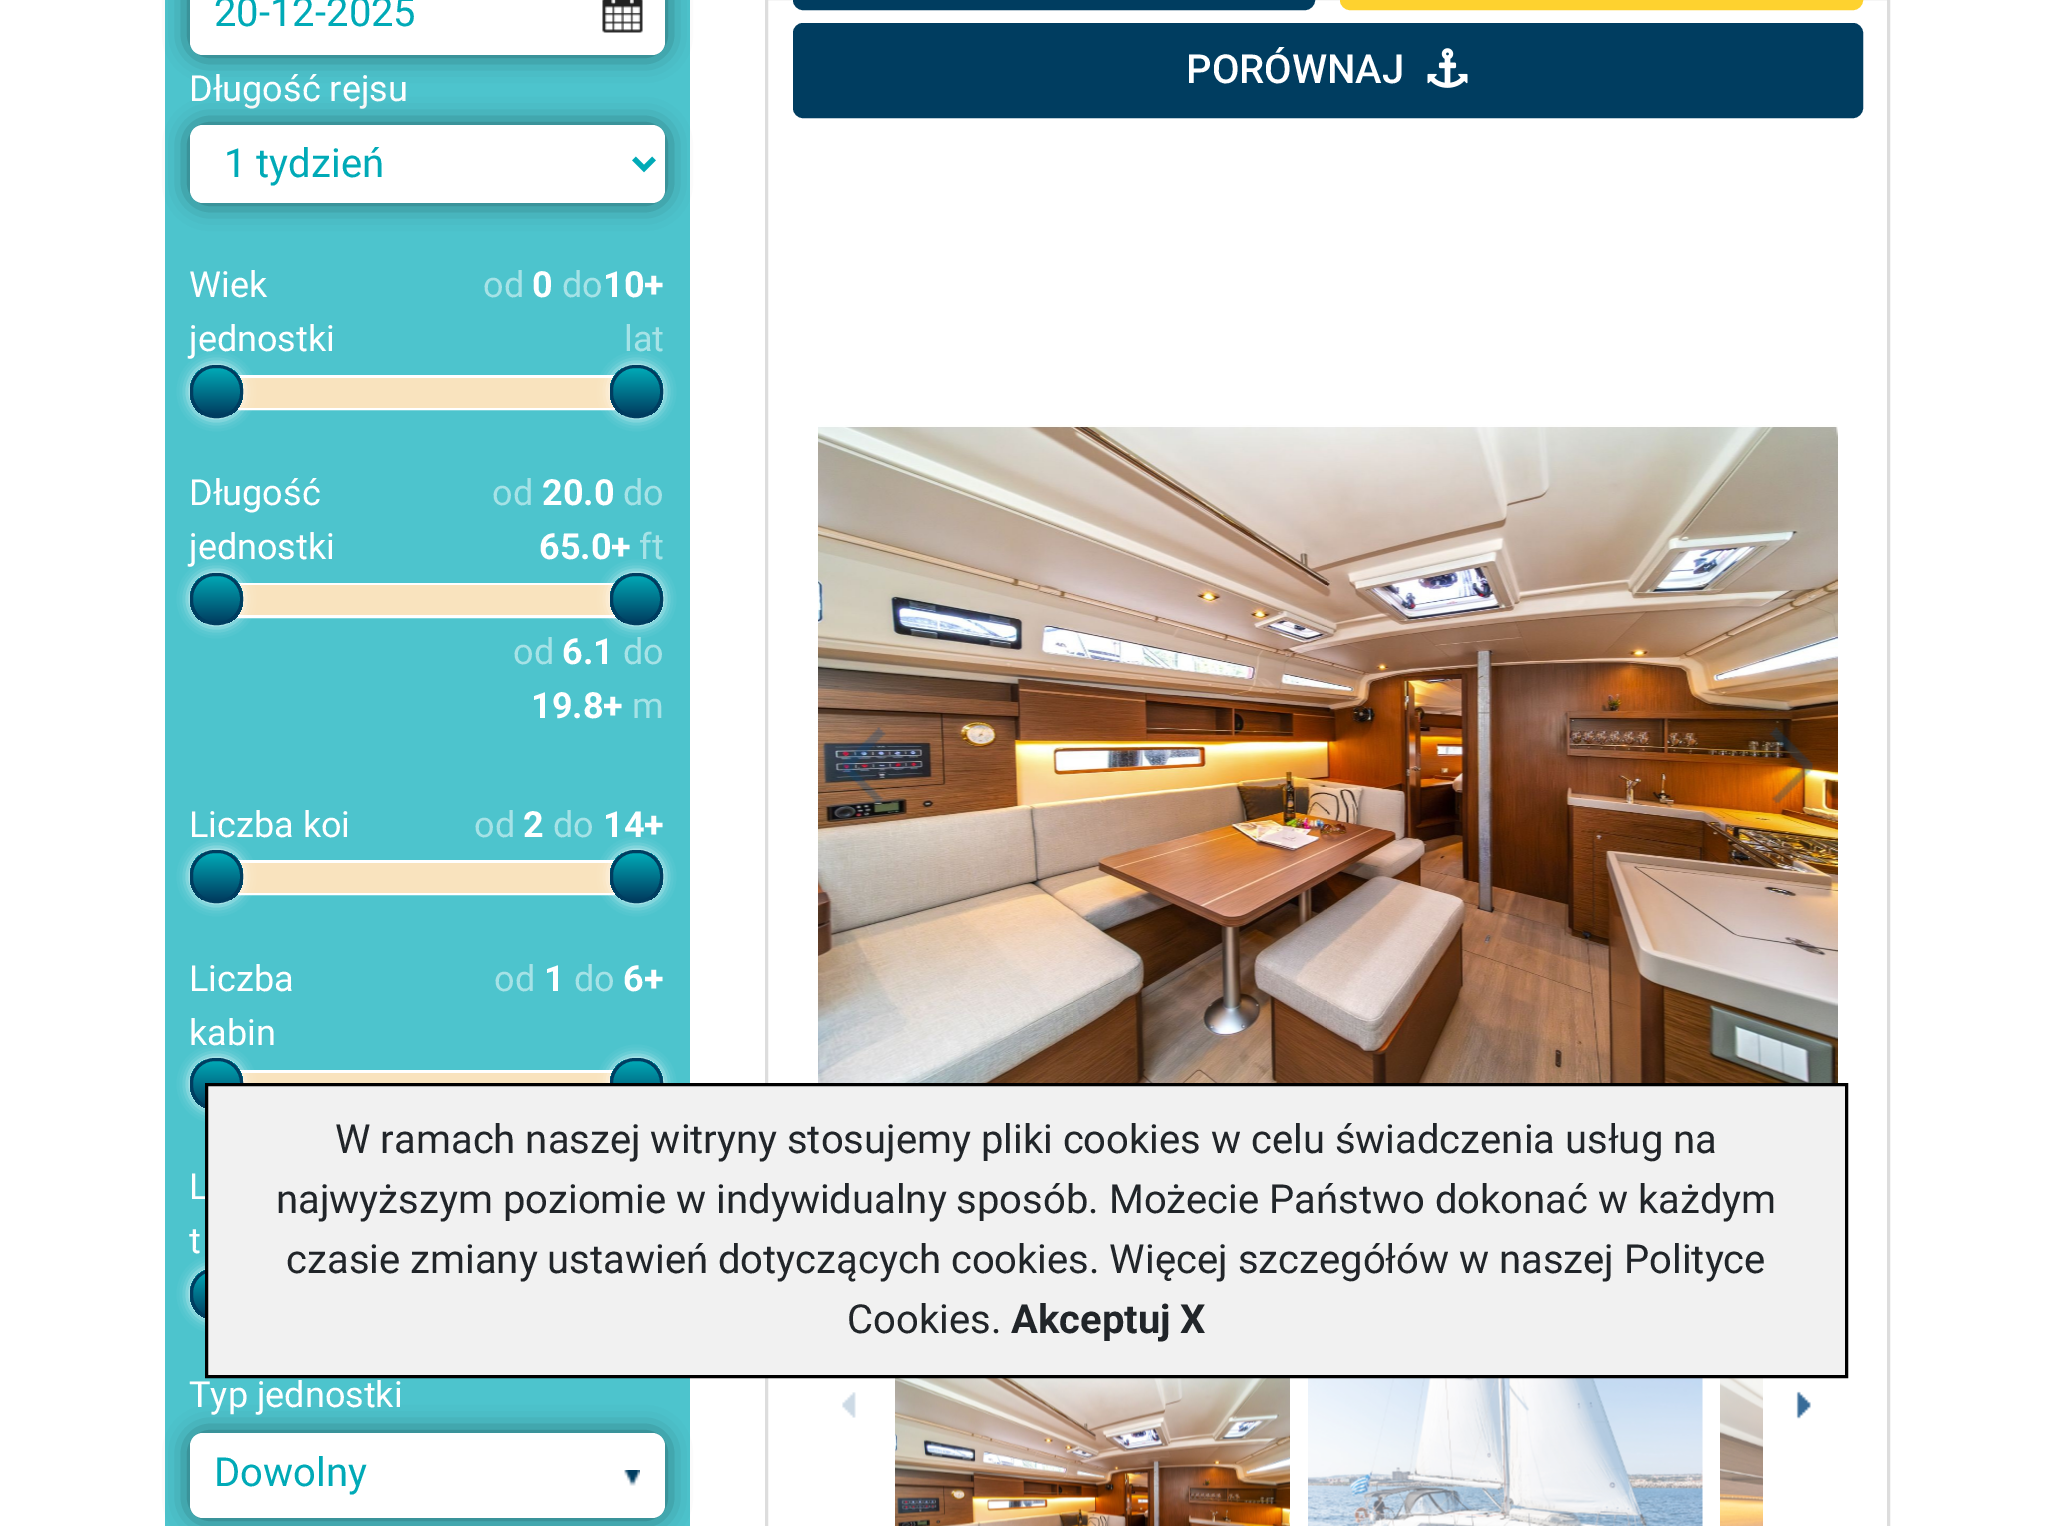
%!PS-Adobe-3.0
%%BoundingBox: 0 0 2052 1526
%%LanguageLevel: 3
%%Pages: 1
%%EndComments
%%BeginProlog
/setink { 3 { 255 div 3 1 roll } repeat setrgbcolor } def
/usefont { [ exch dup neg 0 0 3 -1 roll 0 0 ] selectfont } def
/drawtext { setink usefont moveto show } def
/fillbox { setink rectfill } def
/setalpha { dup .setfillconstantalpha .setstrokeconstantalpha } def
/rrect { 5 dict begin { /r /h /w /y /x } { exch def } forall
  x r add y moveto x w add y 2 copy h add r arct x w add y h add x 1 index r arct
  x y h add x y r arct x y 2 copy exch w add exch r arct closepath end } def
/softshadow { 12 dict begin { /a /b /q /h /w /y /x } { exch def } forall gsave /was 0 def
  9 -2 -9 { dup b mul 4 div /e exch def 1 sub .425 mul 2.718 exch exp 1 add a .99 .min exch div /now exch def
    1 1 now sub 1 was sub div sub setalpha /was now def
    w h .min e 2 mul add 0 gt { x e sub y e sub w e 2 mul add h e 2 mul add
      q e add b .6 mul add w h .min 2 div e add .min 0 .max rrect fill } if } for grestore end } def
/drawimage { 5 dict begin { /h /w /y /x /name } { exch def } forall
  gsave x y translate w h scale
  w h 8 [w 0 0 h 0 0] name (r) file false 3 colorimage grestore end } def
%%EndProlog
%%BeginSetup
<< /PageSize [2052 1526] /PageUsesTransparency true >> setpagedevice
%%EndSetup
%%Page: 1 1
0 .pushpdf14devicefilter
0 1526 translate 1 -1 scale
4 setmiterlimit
0 0 2052 1526 255 255 255 fillbox
165 0 525 1526 77 196 205 fillbox
0 0 0 setink
190 -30 475 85 13 12.5 0.5 softshadow
255 255 255 setink
190 -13 475 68 13 rrect fill
(assets/img1.rgb) 602 0 41 33 drawimage
(20-12-2025) 214 26 /Roboto-Regular 40 0 170 183 drawtext
(Długość rejsu) 189 101 /Roboto-Regular 36 255 255 255 drawtext
0 0 0 setink
190 125 475 78 13 12.5 0.5 softshadow
255 255 255 setink
190 125 475 78 13 rrect fill
0 170 183 setink
5 setlinewidth
634 158.5 moveto 644 168.5 lineto 654 158.5 lineto stroke
(1 tydzień) 224 177 /Roboto-Regular 40 0 170 183 drawtext
(Wiek) 189 297 /Roboto-Regular 36 255 255 255 drawtext
(jednostki) 189 351 /Roboto-Regular 36 255 255 255 drawtext
(od) 483 297 /Roboto-Regular 36 166 226 230 drawtext
(0) 532 297 /Roboto-Bold 36 255 255 255 drawtext
(do) 562 297 /Roboto-Regular 36 166 226 230 drawtext
(10+) 603 297 /Roboto-Bold 36 255 255 255 drawtext
(lat) 624 351 /Roboto-Regular 36 166 226 230 drawtext
255 255 255 setink
3 setlinewidth
216.5 376.5 422 32 rectstroke
238 378 377 30 249 227 190 fillbox
255 255 255 setink
190 365 53 53 25 6 1 softshadow
gsave
190 365 53 53 25 rrect clip newpath
gsave 190 368 moveto 243 368 lineto 243 415 lineto 190 415 lineto closepath clip newpath
<< /ShadingType 2 /ColorSpace /DeviceRGB /Coords [216 415 216 368] /Extend [true true] /Function << /FunctionType 2 /Domain [0 1] /C0 [0 0.239 0.376] /C1 [0 0.667 0.718] /N 1 >> >> shfill grestore
grestore
0 61 96 setink
191.5 366.5 50 50 23.5 rrect stroke
255 255 255 setink
610 365 53 53 25 6 1 softshadow
gsave
610 365 53 53 25 rrect clip newpath
gsave 610 368 moveto 663 368 lineto 663 415 lineto 610 415 lineto closepath clip newpath
<< /ShadingType 2 /ColorSpace /DeviceRGB /Coords [636 415 636 368] /Extend [true true] /Function << /FunctionType 2 /Domain [0 1] /C0 [0 0.239 0.376] /C1 [0 0.667 0.718] /N 1 >> >> shfill grestore
grestore
0 61 96 setink
611.5 366.5 50 50 23.5 rrect stroke
(Długość) 189 505 /Roboto-Regular 36 255 255 255 drawtext
(jednostki) 189 559 /Roboto-Regular 36 255 255 255 drawtext
(od) 492 505 /Roboto-Regular 36 166 226 230 drawtext
(20.0) 542 505 /Roboto-Bold 36 255 255 255 drawtext
(do) 623 505 /Roboto-Regular 36 166 226 230 drawtext
(65.0+) 539 559 /Roboto-Bold 36 255 255 255 drawtext
(ft) 639 559 /Roboto-Regular 36 166 226 230 drawtext
255 255 255 setink
216.5 584.5 422 32 rectstroke
238 585 377 30 249 227 190 fillbox
255 255 255 setink
190 573 53 52 25 6 1 softshadow
gsave
190 573 53 52 25 rrect clip newpath
gsave 190 575 moveto 243 575 lineto 243 623 lineto 190 623 lineto closepath clip newpath
<< /ShadingType 2 /ColorSpace /DeviceRGB /Coords [216 623 216 575] /Extend [true true] /Function << /FunctionType 2 /Domain [0 1] /C0 [0 0.239 0.376] /C1 [0 0.667 0.718] /N 1 >> >> shfill grestore
grestore
0 61 96 setink
191.5 574.5 50 49 23.5 rrect stroke
255 255 255 setink
610 573 53 52 25 6 1 softshadow
gsave
610 573 53 52 25 rrect clip newpath
gsave 610 575 moveto 663 575 lineto 663 623 lineto 610 623 lineto closepath clip newpath
<< /ShadingType 2 /ColorSpace /DeviceRGB /Coords [636 623 636 575] /Extend [true true] /Function << /FunctionType 2 /Domain [0 1] /C0 [0 0.239 0.376] /C1 [0 0.667 0.718] /N 1 >> >> shfill grestore
grestore
0 61 96 setink
611.5 574.5 50 49 23.5 rrect stroke
(od) 513 664 /Roboto-Regular 36 166 226 230 drawtext
(6.1) 562 664 /Roboto-Bold 36 255 255 255 drawtext
(do) 623 664 /Roboto-Regular 36 166 226 230 drawtext
(19.8+) 531 718 /Roboto-Bold 36 255 255 255 drawtext
(m) 632 718 /Roboto-Regular 36 166 226 230 drawtext
(Liczba koi) 189 837 /Roboto-Regular 36 255 255 255 drawtext
(od) 474 837 /Roboto-Regular 36 166 226 230 drawtext
(2) 523 837 /Roboto-Bold 36 255 255 255 drawtext
(do) 553 837 /Roboto-Regular 36 166 226 230 drawtext
(14+) 603 837 /Roboto-Bold 36 255 255 255 drawtext
216.5 861.5 422 32 rectstroke
238 863 377 30 249 227 190 fillbox
255 255 255 setink
190 850 53 53 25 6 1 softshadow
gsave
190 850 53 53 25 rrect clip newpath
gsave 190 853 moveto 243 853 lineto 243 900 lineto 190 900 lineto closepath clip newpath
<< /ShadingType 2 /ColorSpace /DeviceRGB /Coords [216 900 216 853] /Extend [true true] /Function << /FunctionType 2 /Domain [0 1] /C0 [0 0.239 0.376] /C1 [0 0.667 0.718] /N 1 >> >> shfill grestore
grestore
0 61 96 setink
191.5 851.5 50 50 23.5 rrect stroke
255 255 255 setink
610 850 53 53 25 6 1 softshadow
gsave
610 850 53 53 25 rrect clip newpath
gsave 610 853 moveto 663 853 lineto 663 900 lineto 610 900 lineto closepath clip newpath
<< /ShadingType 2 /ColorSpace /DeviceRGB /Coords [636 900 636 853] /Extend [true true] /Function << /FunctionType 2 /Domain [0 1] /C0 [0 0.239 0.376] /C1 [0 0.667 0.718] /N 1 >> >> shfill grestore
grestore
0 61 96 setink
611.5 851.5 50 50 23.5 rrect stroke
(Liczba) 189 991 /Roboto-Regular 36 255 255 255 drawtext
(kabin) 189 1045 /Roboto-Regular 36 255 255 255 drawtext
(od) 494 991 /Roboto-Regular 36 166 226 230 drawtext
(1) 544 991 /Roboto-Bold 36 255 255 255 drawtext
(do) 574 991 /Roboto-Regular 36 166 226 230 drawtext
(6+) 623 991 /Roboto-Bold 36 255 255 255 drawtext
216.5 1071.5 422 32 rectstroke
240 1073 373 10 249 227 190 fillbox
255 255 255 setink
190 1058 53 52 25 6 1 softshadow
gsave
190 1058 53 52 25 rrect clip newpath
gsave 190 1060 moveto 243 1060 lineto 243 1108 lineto 190 1108 lineto closepath clip newpath
<< /ShadingType 2 /ColorSpace /DeviceRGB /Coords [216 1108 216 1060] /Extend [true true] /Function << /FunctionType 2 /Domain [0 1] /C0 [0 0.239 0.376] /C1 [0 0.667 0.718] /N 1 >> >> shfill grestore
grestore
0 61 96 setink
191.5 1059.5 50 49 23.5 rrect stroke
255 255 255 setink
610 1058 53 52 25 6 1 softshadow
gsave
610 1058 53 52 25 rrect clip newpath
gsave 610 1060 moveto 663 1060 lineto 663 1083 lineto 610 1083 lineto closepath clip newpath
<< /ShadingType 2 /ColorSpace /DeviceRGB /Coords [636 1108 636 1060] /Extend [true true] /Function << /FunctionType 2 /Domain [0 1] /C0 [0 0.239 0.376] /C1 [0 0.667 0.718] /N 1 >> >> shfill grestore
grestore
0 61 96 setink
611.5 1059.5 50 49 23.5 rrect stroke
(L) 189 1199 /Roboto-Regular 36 255 255 255 drawtext
(t) 189 1253 /Roboto-Regular 36 255 255 255 drawtext
190 1268 53 52 25 6 1 softshadow
gsave
190 1268 53 52 25 rrect clip newpath
gsave 190 1270 moveto 205 1270 lineto 205 1318 lineto 190 1318 lineto closepath clip newpath
<< /ShadingType 2 /ColorSpace /DeviceRGB /Coords [216 1318 216 1270] /Extend [true true] /Function << /FunctionType 2 /Domain [0 1] /C0 [0 0.239 0.376] /C1 [0 0.667 0.718] /N 1 >> >> shfill grestore
grestore
0 61 96 setink
191.5 1269.5 50 49 23.5 rrect stroke
0 0 0 setink
190 1433 475 85 13 12.5 0.5 softshadow
(Typ jednostki) 189 1407 /Roboto-Regular 36 255 255 255 drawtext
190 1433 475 85 13 rrect fill
(assets/img2.rgb) 624 1470 16 16 drawimage
(Dowolny) 214 1486 /Roboto-Regular 40 0 170 183 drawtext
221 221 221 setink
766.5 -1.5 1122 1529 rectstroke
0 61 96 setink
794.5 -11.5 519 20 8.5 rrect gsave fill grestore
stroke
254 210 47 setink
1341.5 -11.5 520 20 8.5 rrect gsave fill grestore
stroke
0 61 96 setink
794.5 24.5 1067 92 8.5 rrect gsave fill grestore
stroke
(PORÓWNAJ) 1186 83 /Roboto-Medium 40 255 255 255 drawtext
(assets/img3.rgb) 1427 48 41 40 drawimage
(assets/img4.rgb) 818 425 1020 658 drawimage
(assets/img5.rgb) 842 727 44 77 drawimage
(assets/img6.rgb) 1769 727 44 77 drawimage
(assets/img7.rgb) 842 1392 14 26 drawimage
(assets/img8.rgb) 895 1378 395 148 drawimage
(assets/img9.rgb) 1308 1378 395 148 drawimage
(assets/img10.rgb) 1720 1378 43 148 drawimage
(assets/img11.rgb) 1796 1391 15 28 drawimage
241 241 241 setink
206.5 1084.5 moveto 1846.5 1084.5 lineto 1846.5 1376.5 lineto 206.5 1376.5 lineto closepath gsave fill grestore
0 0 0 setink
stroke
(W ramach naszej witryny stosujemy pliki cookies w celu świadczenia usług na) 335 1153 /Roboto-Regular 40 33 37 41 drawtext
(najwyższym poziomie w indywidualny sposób. Możecie Państwo dokonać w każdym) 276 1213 /Roboto-Regular 40 33 37 41 drawtext
(czasie zmiany ustawień dotyczących cookies. Więcej szczegółów w naszej Polityce) 286 1273 /Roboto-Regular 40 33 37 41 drawtext
(Cookies.) 847 1333 /Roboto-Regular 40 33 37 41 drawtext
(Akceptuj X) 1011 1333 /Roboto-Bold 40 33 37 41 drawtext
.poppdf14devicefilter showpage
%%EOF
